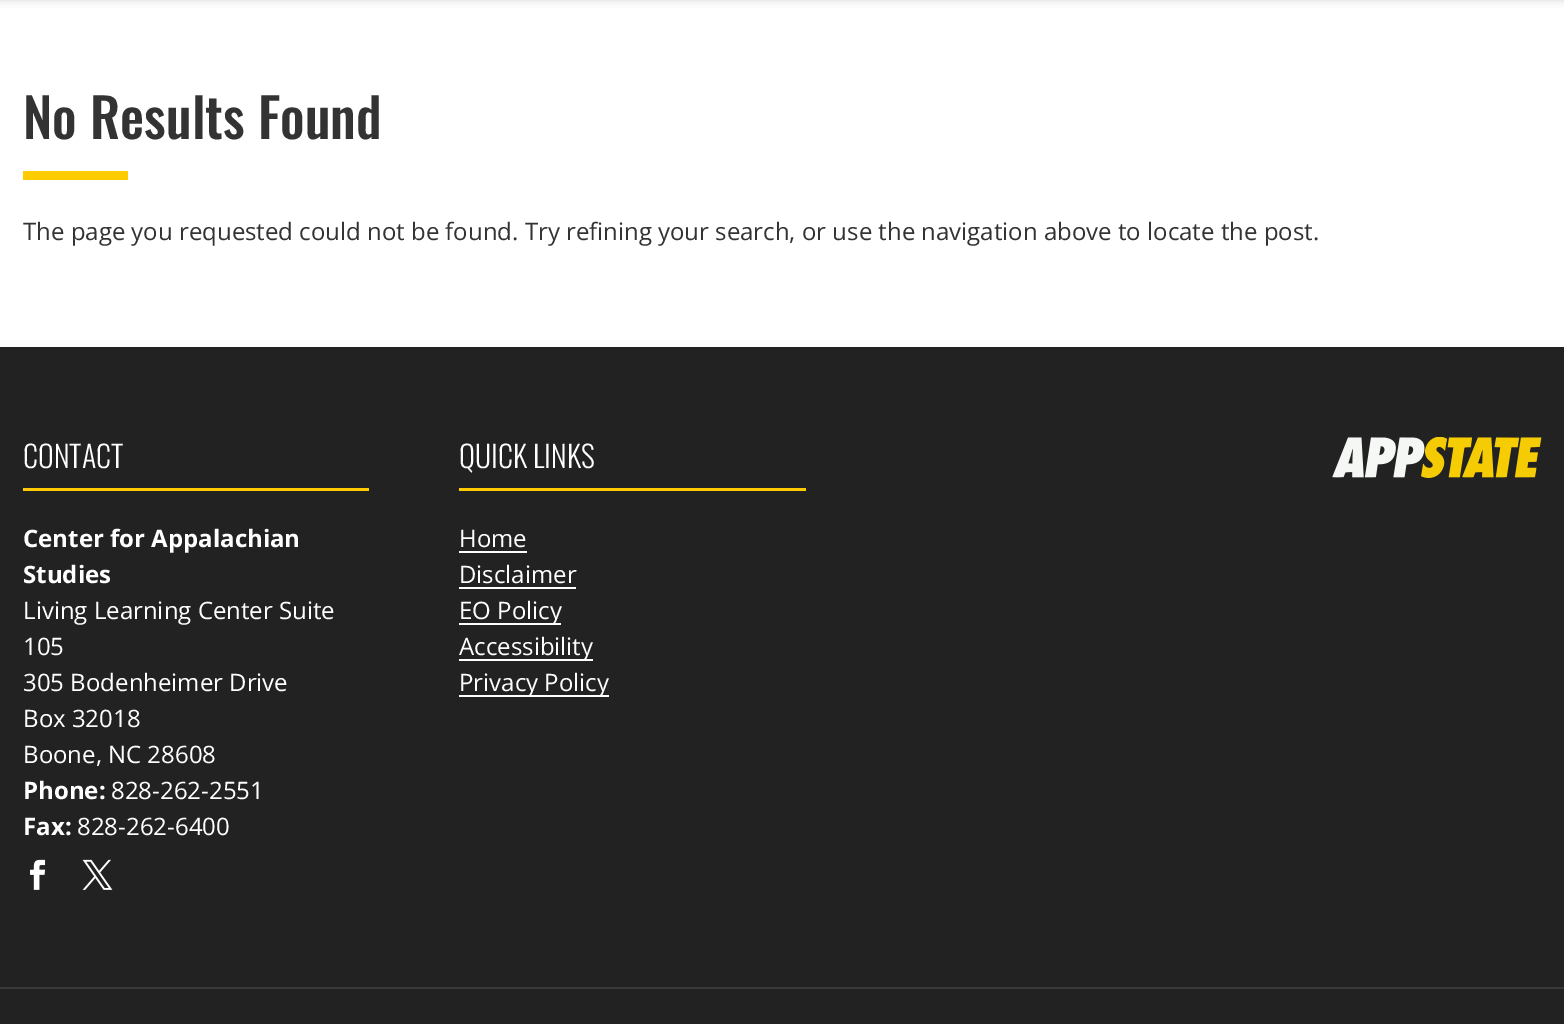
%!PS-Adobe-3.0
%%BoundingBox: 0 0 1564 1024
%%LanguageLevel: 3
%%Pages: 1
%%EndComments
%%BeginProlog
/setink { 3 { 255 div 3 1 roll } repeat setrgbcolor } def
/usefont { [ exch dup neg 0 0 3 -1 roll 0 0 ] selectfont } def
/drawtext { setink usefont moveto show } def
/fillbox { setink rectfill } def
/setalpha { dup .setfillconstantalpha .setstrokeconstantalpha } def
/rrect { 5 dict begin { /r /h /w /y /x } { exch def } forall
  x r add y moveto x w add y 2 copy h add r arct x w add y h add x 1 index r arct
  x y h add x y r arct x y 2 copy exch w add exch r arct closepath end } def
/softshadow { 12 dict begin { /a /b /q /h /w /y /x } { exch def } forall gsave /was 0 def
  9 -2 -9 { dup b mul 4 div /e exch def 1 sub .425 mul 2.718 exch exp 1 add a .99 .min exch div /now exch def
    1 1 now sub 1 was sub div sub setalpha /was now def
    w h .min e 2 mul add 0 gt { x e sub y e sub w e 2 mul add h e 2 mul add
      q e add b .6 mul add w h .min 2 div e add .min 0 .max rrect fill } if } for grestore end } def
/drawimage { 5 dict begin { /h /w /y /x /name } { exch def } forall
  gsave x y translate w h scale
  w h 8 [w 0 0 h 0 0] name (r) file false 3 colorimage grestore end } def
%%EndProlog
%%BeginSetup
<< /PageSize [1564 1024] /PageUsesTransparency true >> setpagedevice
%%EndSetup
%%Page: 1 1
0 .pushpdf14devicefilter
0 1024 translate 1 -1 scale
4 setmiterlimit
0 0 1564 1024 255 255 255 fillbox
0 0 0 setink
0 -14 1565 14 0 4.5 0.16 softshadow
(No Results Found) 23 139 /Oswald-Medium 54 51 51 51 drawtext
23 171 105 9 255 204 0 fillbox
(The page you requested could not be found. Try refining your search, or use the navigation above to locate the post.) 23 240 /OpenSans-Regular 24 51 51 51 drawtext
0 347 1564 677 34 34 34 fillbox
23 488 346 3 255 204 0 fillbox
(CONTACT) 23 468 /Oswald-Light 30 255 255 255 drawtext
(Center for Appalachian) 23 547 /OpenSans-Bold 24 255 255 255 drawtext
(Studies) 23 583 /OpenSans-Bold 24 255 255 255 drawtext
(Living Learning Center Suite) 23 619 /OpenSans-Regular 24 255 255 255 drawtext
(105) 23 655 /OpenSans-Regular 24 255 255 255 drawtext
(305 Bodenheimer Drive) 23 691 /OpenSans-Regular 24 255 255 255 drawtext
(Box 32018) 23 727 /OpenSans-Regular 24 255 255 255 drawtext
(Boone, NC 28608) 23 763 /OpenSans-Regular 24 255 255 255 drawtext
(Phone:) 23 799 /OpenSans-Bold 24 255 255 255 drawtext
(828-262-2551) 111 799 /OpenSans-Regular 24 255 255 255 drawtext
(Fax:) 23 835 /OpenSans-Bold 24 255 255 255 drawtext
(828-262-6400) 77 835 /OpenSans-Regular 24 255 255 255 drawtext
(assets/img1.rgb) 30 859 16 31 drawimage
(assets/img2.rgb) 82 859 31 31 drawimage
459 488 347 3 255 204 0 fillbox
(QUICK LINKS) 459 468 /Oswald-Light 30 255 255 255 drawtext
(Home) 459 547 /OpenSans-Regular 24 255 255 255 drawtext
459 551 68 2 255 255 255 fillbox
(Disclaimer) 459 583 /OpenSans-Regular 24 255 255 255 drawtext
459 587 117 2 255 255 255 fillbox
459 623 102 2 255 255 255 fillbox
(EO Policy) 459 619 /OpenSans-Regular 24 255 255 255 drawtext
459 659 134 2 255 255 255 fillbox
(Accessibility) 459 655 /OpenSans-Regular 24 255 255 255 drawtext
459 695 150 2 255 255 255 fillbox
(Privacy Policy) 459 691 /OpenSans-Regular 24 255 255 255 drawtext
(assets/img3.rgb) 1332 437 210 42 drawimage
0 987 1564 2 56 56 56 fillbox
.poppdf14devicefilter showpage
%%EOF
